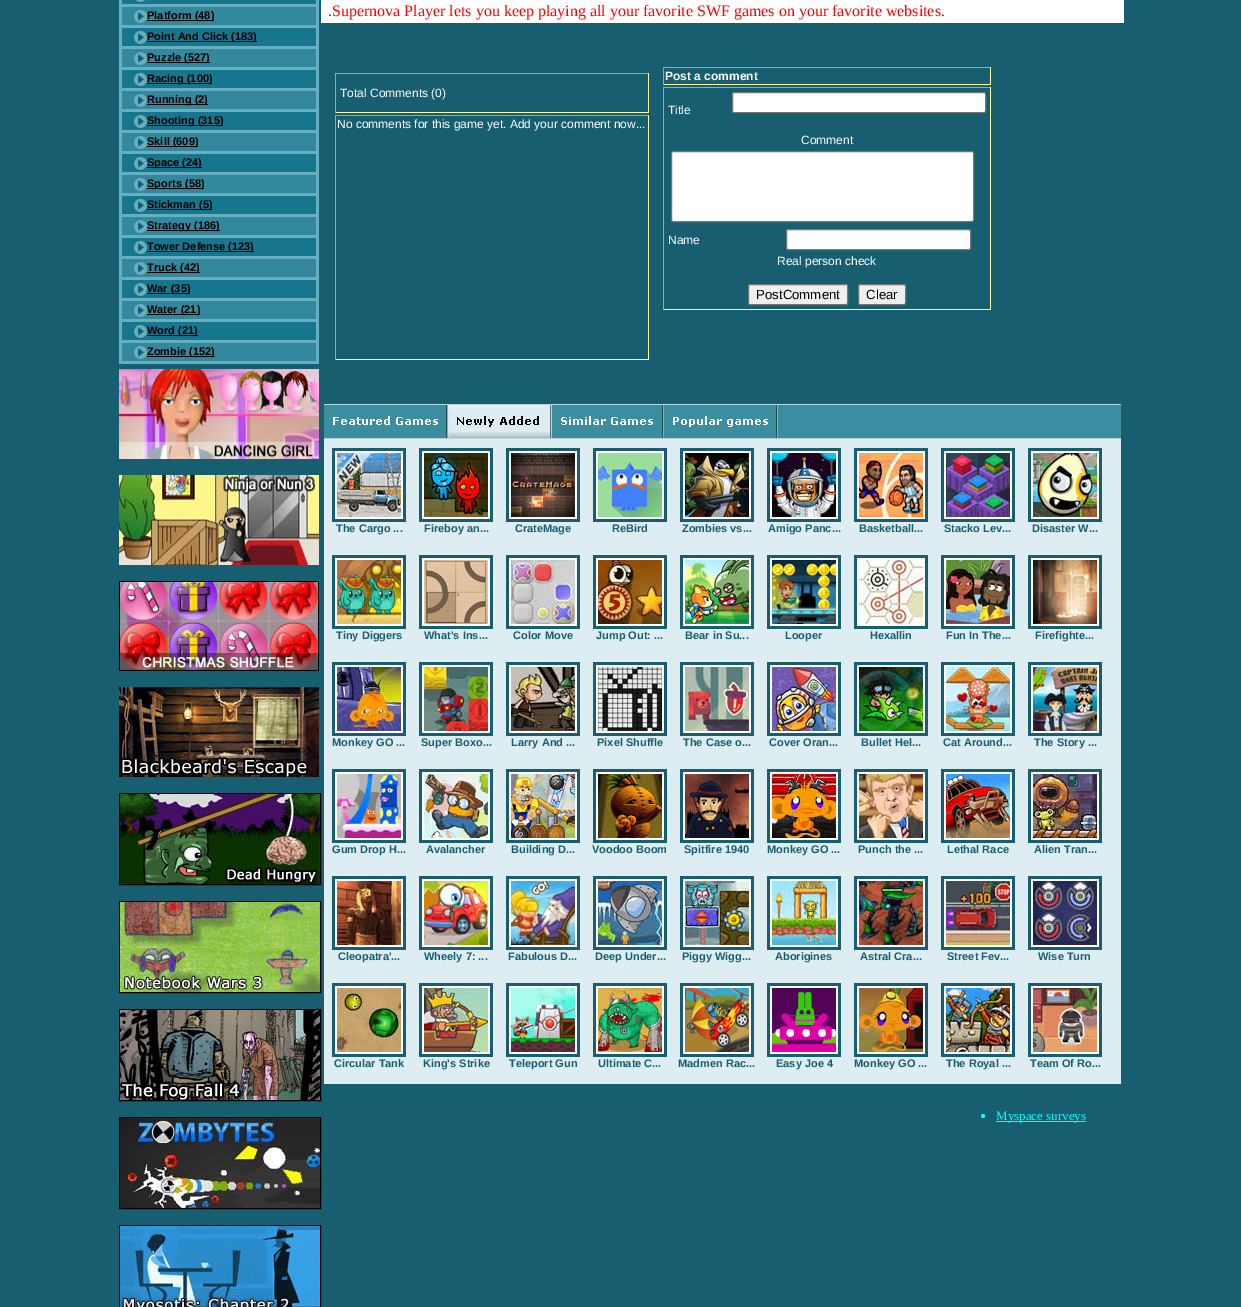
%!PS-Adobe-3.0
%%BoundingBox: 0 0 1241 1307
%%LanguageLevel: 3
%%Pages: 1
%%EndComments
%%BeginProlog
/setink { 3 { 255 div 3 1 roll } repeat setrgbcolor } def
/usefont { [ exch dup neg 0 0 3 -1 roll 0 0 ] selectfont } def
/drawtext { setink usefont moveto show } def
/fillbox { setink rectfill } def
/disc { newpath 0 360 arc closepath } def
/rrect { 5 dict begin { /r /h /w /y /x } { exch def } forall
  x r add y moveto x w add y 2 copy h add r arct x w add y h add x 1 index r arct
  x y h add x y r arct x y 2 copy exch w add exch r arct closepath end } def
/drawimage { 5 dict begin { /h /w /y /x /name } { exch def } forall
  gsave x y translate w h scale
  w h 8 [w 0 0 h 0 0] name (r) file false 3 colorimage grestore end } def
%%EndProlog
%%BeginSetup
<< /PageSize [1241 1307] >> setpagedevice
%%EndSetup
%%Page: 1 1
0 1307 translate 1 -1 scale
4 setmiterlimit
0 0 1241 1307 23 94 112 fillbox
119 0 200 364 102 175 193 fillbox
122 0 194 4 22 118 141 fillbox
(assets/img1.rgb) 135 0 11 2 drawimage
122 7 194 18 52 136 157 fillbox
(assets/img2.rgb) 134 10 13 13 drawimage
147 20 67 1 0 0 0 fillbox
(Platform \(48\)) 147 19 /LiberationSans-Bold 11 0 0 0 drawtext
122 28 194 18 22 118 141 fillbox
(assets/img3.rgb) 134 31 13 13 drawimage
147 41 110 1 0 0 0 fillbox
(Point And Click \(183\)) 147 40 /LiberationSans-Bold 11 0 0 0 drawtext
122 49 194 18 52 136 157 fillbox
(assets/img2.rgb) 134 52 13 13 drawimage
147 62 63 1 0 0 0 fillbox
(Puzzle \(527\)) 147 61 /LiberationSans-Bold 11 0 0 0 drawtext
122 70 194 18 22 118 141 fillbox
(assets/img3.rgb) 134 73 13 13 drawimage
147 83 65 1 0 0 0 fillbox
(Racing \(100\)) 147 82 /LiberationSans-Bold 11 0 0 0 drawtext
122 91 194 18 52 136 157 fillbox
(assets/img2.rgb) 134 94 13 13 drawimage
147 104 61 1 0 0 0 fillbox
(Running \(2\)) 147 103 /LiberationSans-Bold 11 0 0 0 drawtext
122 112 194 18 22 118 141 fillbox
(assets/img3.rgb) 134 115 13 13 drawimage
147 125 76 1 0 0 0 fillbox
(Shooting \(315\)) 147 124 /LiberationSans-Bold 11 0 0 0 drawtext
122 133 194 18 52 136 157 fillbox
(assets/img2.rgb) 134 136 13 13 drawimage
147 146 51 1 0 0 0 fillbox
(Skill \(609\)) 147 145 /LiberationSans-Bold 11 0 0 0 drawtext
122 154 194 18 22 118 141 fillbox
(assets/img3.rgb) 134 157 13 13 drawimage
147 167 55 1 0 0 0 fillbox
(Space \(24\)) 147 166 /LiberationSans-Bold 11 0 0 0 drawtext
122 175 194 18 52 136 157 fillbox
(assets/img2.rgb) 134 178 13 13 drawimage
147 188 57 1 0 0 0 fillbox
(Sports \(58\)) 147 187 /LiberationSans-Bold 11 0 0 0 drawtext
122 196 194 18 22 118 141 fillbox
(assets/img3.rgb) 134 199 13 13 drawimage
147 209 65 1 0 0 0 fillbox
(Stickman \(5\)) 147 208 /LiberationSans-Bold 11 0 0 0 drawtext
122 217 194 18 52 136 157 fillbox
(assets/img2.rgb) 134 220 13 13 drawimage
147 230 73 1 0 0 0 fillbox
(Strategy \(186\)) 147 229 /LiberationSans-Bold 11 0 0 0 drawtext
122 238 194 18 22 118 141 fillbox
(assets/img3.rgb) 134 241 13 13 drawimage
147 251 107 1 0 0 0 fillbox
(Tower Defense \(123\)) 147 250 /LiberationSans-Bold 11 0 0 0 drawtext
122 259 194 18 52 136 157 fillbox
(assets/img2.rgb) 134 262 13 13 drawimage
147 272 53 1 0 0 0 fillbox
(Truck \(42\)) 147 271 /LiberationSans-Bold 11 0 0 0 drawtext
122 280 194 18 22 118 141 fillbox
(assets/img3.rgb) 134 283 13 13 drawimage
147 293 43 1 0 0 0 fillbox
(War \(35\)) 147 292 /LiberationSans-Bold 11 0 0 0 drawtext
122 301 194 18 52 136 157 fillbox
(assets/img2.rgb) 134 304 13 13 drawimage
147 314 53 1 0 0 0 fillbox
(Water \(21\)) 147 313 /LiberationSans-Bold 11 0 0 0 drawtext
122 322 194 18 22 118 141 fillbox
(assets/img3.rgb) 134 325 13 13 drawimage
147 335 51 1 0 0 0 fillbox
(Word \(21\)) 147 334 /LiberationSans-Bold 11 0 0 0 drawtext
122 343 194 18 52 136 157 fillbox
(assets/img2.rgb) 134 346 13 13 drawimage
147 356 68 1 0 0 0 fillbox
(Zombie \(152\)) 147 355 /LiberationSans-Bold 11 0 0 0 drawtext
(assets/img4.rgb) 119 369 200 90 drawimage
(assets/img5.rgb) 119 475 200 90 drawimage
(assets/img6.rgb) 119 581 200 90 drawimage
(assets/img7.rgb) 119 687 200 90 drawimage
119.5 793.5 201 91 rectstroke
(assets/img8.rgb) 120 794 200 90 drawimage
119.5 901.5 201 91 rectstroke
(assets/img9.rgb) 120 902 200 90 drawimage
119.5 1009.5 201 91 rectstroke
(assets/img10.rgb) 120 1010 200 90 drawimage
119.5 1117.5 201 91 rectstroke
(assets/img11.rgb) 120 1118 200 90 drawimage
119.5 1225.5 201 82 rectstroke
(assets/img12.rgb) 120 1226 200 81 drawimage
321 0 803 23 255 255 255 fillbox
(.Supernova Player lets you keep playing all your favorite SWF games on your favorite websites.) 328 16 /LiberationSerif-Regular 16 255 0 0 drawtext
335 73 314 1 170 170 102 fillbox
648 73 1 40 255 255 153 fillbox
335 112 314 1 255 255 153 fillbox
335 73 1 40 170 170 102 fillbox
(Total Comments \(0\)) 340 97 /LiberationSans-Regular 12 255 255 255 drawtext
335 115 314 1 170 170 102 fillbox
648 115 1 245 255 255 153 fillbox
335 359 314 1 255 255 153 fillbox
335 115 1 245 170 170 102 fillbox
(No comments for this game yet. Add your comment now...) 337 128 /LiberationSans-Regular 12 255 255 255 drawtext
663 67 328 1 170 170 102 fillbox
990 67 1 18 255 255 153 fillbox
663 84 328 1 255 255 153 fillbox
663 67 1 18 170 170 102 fillbox
(Post a comment) 665 80 /LiberationSans-Bold 12 255 255 255 drawtext
663 87 328 1 170 170 102 fillbox
990 87 1 223 255 255 153 fillbox
663 309 328 1 255 255 153 fillbox
663 87 1 223 170 170 102 fillbox
(Title) 668 114 /LiberationSans-Regular 12 255 255 255 drawtext
732.5 92.5 253 20 1.5 rrect gsave fill grestore
118 118 118 setink
stroke
(Comment) 801 144 /LiberationSans-Regular 12 255 255 255 drawtext
671.5 151.5 302 70 1.5 rrect gsave fill grestore
118 118 118 setink
stroke
(Name) 668 244 /LiberationSans-Regular 12 255 255 255 drawtext
786.5 229.5 184 20 1.5 rrect gsave fill grestore
118 118 118 setink
stroke
(Real person check) 777 265 /LiberationSans-Regular 12 255 255 255 drawtext
239 239 239 setink
748.5 284.5 99 20 1.5 rrect gsave fill grestore
118 118 118 setink
stroke
(PostComment) 756 299 /LiberationSans-Regular 13.25 0 0 0 drawtext
239 239 239 setink
858.5 284.5 47 20 1.5 rrect gsave fill grestore
118 118 118 setink
stroke
(Clear) 866 299 /LiberationSans-Regular 13.25 0 0 0 drawtext
324 439 797 645 221 237 241 fillbox
324 404 797 1 179 213 221 fillbox
324 405 797 33 58 142 160 fillbox
(assets/img13.rgb) 333 405 115 33 drawimage
(assets/img14.rgb) 448 405 104 33 drawimage
(assets/img15.rgb) 561 405 103 33 drawimage
(assets/img16.rgb) 673 405 105 33 drawimage
324 438 797 1 179 213 221 fillbox
332 448 74 74 23 94 112 fillbox
335 451 68 68 255 255 255 fillbox
(assets/img17.rgb) 337 453 64 64 drawimage
(The Cargo ...) 336 532 /LiberationSans-Bold 11 23 94 112 drawtext
419 448 74 74 23 94 112 fillbox
422 451 68 68 255 255 255 fillbox
(assets/img18.rgb) 424 453 64 64 drawimage
(Fireboy an...) 424 532 /LiberationSans-Bold 11 23 94 112 drawtext
506 448 74 74 23 94 112 fillbox
509 451 68 68 255 255 255 fillbox
(assets/img19.rgb) 511 453 64 64 drawimage
(CrateMage) 515 532 /LiberationSans-Bold 11 23 94 112 drawtext
593 448 74 74 23 94 112 fillbox
596 451 68 68 255 255 255 fillbox
(assets/img20.rgb) 598 453 64 64 drawimage
(ReBird) 612 532 /LiberationSans-Bold 11 23 94 112 drawtext
680 448 74 74 23 94 112 fillbox
683 451 68 68 255 255 255 fillbox
(assets/img21.rgb) 685 453 64 64 drawimage
(Zombies vs...) 682 532 /LiberationSans-Bold 11 23 94 112 drawtext
767 448 74 74 23 94 112 fillbox
770 451 68 68 255 255 255 fillbox
(assets/img22.rgb) 772 453 64 64 drawimage
(Amigo Panc...) 768 532 /LiberationSans-Bold 11 23 94 112 drawtext
854 448 74 74 23 94 112 fillbox
857 451 68 68 255 255 255 fillbox
(assets/img23.rgb) 859 453 64 64 drawimage
(Basketball...) 859 532 /LiberationSans-Bold 11 23 94 112 drawtext
941 448 74 74 23 94 112 fillbox
944 451 68 68 255 255 255 fillbox
(assets/img24.rgb) 946 453 64 64 drawimage
(Stacko Lev...) 944 532 /LiberationSans-Bold 11 23 94 112 drawtext
1028 448 74 74 23 94 112 fillbox
1031 451 68 68 255 255 255 fillbox
(assets/img25.rgb) 1033 453 64 64 drawimage
(Disaster W...) 1032 532 /LiberationSans-Bold 11 23 94 112 drawtext
332 555 74 74 23 94 112 fillbox
335 558 68 68 255 255 255 fillbox
(assets/img26.rgb) 337 560 64 64 drawimage
(Tiny Diggers) 336 639 /LiberationSans-Bold 11 23 94 112 drawtext
419 555 74 74 23 94 112 fillbox
422 558 68 68 255 255 255 fillbox
(assets/img27.rgb) 424 560 64 64 drawimage
(What's Ins...) 424 639 /LiberationSans-Bold 11 23 94 112 drawtext
506 555 74 74 23 94 112 fillbox
509 558 68 68 255 255 255 fillbox
(assets/img28.rgb) 511 560 64 64 drawimage
(Color Move) 513 639 /LiberationSans-Bold 11 23 94 112 drawtext
593 555 74 74 23 94 112 fillbox
596 558 68 68 255 255 255 fillbox
(assets/img29.rgb) 598 560 64 64 drawimage
(Jump Out: ...) 596 639 /LiberationSans-Bold 11 23 94 112 drawtext
680 555 74 74 23 94 112 fillbox
683 558 68 68 255 255 255 fillbox
(assets/img30.rgb) 685 560 64 64 drawimage
(Bear in Su...) 685 639 /LiberationSans-Bold 11 23 94 112 drawtext
767 555 74 74 23 94 112 fillbox
770 558 68 68 255 255 255 fillbox
(assets/img31.rgb) 772 560 64 64 drawimage
(Looper) 785 639 /LiberationSans-Bold 11 23 94 112 drawtext
854 555 74 74 23 94 112 fillbox
857 558 68 68 255 255 255 fillbox
(assets/img32.rgb) 859 560 64 64 drawimage
(Hexallin) 870 639 /LiberationSans-Bold 11 23 94 112 drawtext
941 555 74 74 23 94 112 fillbox
944 558 68 68 255 255 255 fillbox
(assets/img33.rgb) 946 560 64 64 drawimage
(Fun In The...) 946 639 /LiberationSans-Bold 11 23 94 112 drawtext
1028 555 74 74 23 94 112 fillbox
1031 558 68 68 255 255 255 fillbox
(assets/img34.rgb) 1033 560 64 64 drawimage
(Firefighte...) 1035 639 /LiberationSans-Bold 11 23 94 112 drawtext
332 662 74 74 23 94 112 fillbox
335 665 68 68 255 255 255 fillbox
(assets/img35.rgb) 337 667 64 64 drawimage
(Monkey GO ...) 332 746 /LiberationSans-Bold 11 23 94 112 drawtext
419 662 74 74 23 94 112 fillbox
422 665 68 68 255 255 255 fillbox
(assets/img36.rgb) 424 667 64 64 drawimage
(Super Boxo...) 421 746 /LiberationSans-Bold 11 23 94 112 drawtext
506 662 74 74 23 94 112 fillbox
509 665 68 68 255 255 255 fillbox
(assets/img37.rgb) 511 667 64 64 drawimage
(Larry And ...) 511 746 /LiberationSans-Bold 11 23 94 112 drawtext
593 662 74 74 23 94 112 fillbox
596 665 68 68 255 255 255 fillbox
(assets/img38.rgb) 598 667 64 64 drawimage
(Pixel Shuffle) 597 746 /LiberationSans-Bold 11 23 94 112 drawtext
680 662 74 74 23 94 112 fillbox
683 665 68 68 255 255 255 fillbox
(assets/img39.rgb) 685 667 64 64 drawimage
(The Case o...) 683 746 /LiberationSans-Bold 11 23 94 112 drawtext
767 662 74 74 23 94 112 fillbox
770 665 68 68 255 255 255 fillbox
(assets/img40.rgb) 772 667 64 64 drawimage
(Cover Oran...) 769 746 /LiberationSans-Bold 11 23 94 112 drawtext
854 662 74 74 23 94 112 fillbox
857 665 68 68 255 255 255 fillbox
(assets/img41.rgb) 859 667 64 64 drawimage
(Bullet Hel...) 861 746 /LiberationSans-Bold 11 23 94 112 drawtext
941 662 74 74 23 94 112 fillbox
944 665 68 68 255 255 255 fillbox
(assets/img42.rgb) 946 667 64 64 drawimage
(Cat Around...) 943 746 /LiberationSans-Bold 11 23 94 112 drawtext
1028 662 74 74 23 94 112 fillbox
1031 665 68 68 255 255 255 fillbox
(assets/img43.rgb) 1033 667 64 64 drawimage
(The Story ...) 1034 746 /LiberationSans-Bold 11 23 94 112 drawtext
332 769 74 74 23 94 112 fillbox
335 772 68 68 255 255 255 fillbox
(assets/img44.rgb) 337 774 64 64 drawimage
(Gum Drop H...) 332 853 /LiberationSans-Bold 11 23 94 112 drawtext
419 769 74 74 23 94 112 fillbox
422 772 68 68 255 255 255 fillbox
(assets/img45.rgb) 424 774 64 64 drawimage
(Avalancher) 426 853 /LiberationSans-Bold 11 23 94 112 drawtext
506 769 74 74 23 94 112 fillbox
509 772 68 68 255 255 255 fillbox
(assets/img46.rgb) 511 774 64 64 drawimage
(Building D...) 511 853 /LiberationSans-Bold 11 23 94 112 drawtext
593 769 74 74 23 94 112 fillbox
596 772 68 68 255 255 255 fillbox
(assets/img47.rgb) 598 774 64 64 drawimage
(Voodoo Boom) 592 853 /LiberationSans-Bold 11 23 94 112 drawtext
680 769 74 74 23 94 112 fillbox
683 772 68 68 255 255 255 fillbox
(assets/img48.rgb) 685 774 64 64 drawimage
(Spitfire 1940) 684 853 /LiberationSans-Bold 11 23 94 112 drawtext
767 769 74 74 23 94 112 fillbox
770 772 68 68 255 255 255 fillbox
(assets/img49.rgb) 772 774 64 64 drawimage
(Monkey GO ...) 767 853 /LiberationSans-Bold 11 23 94 112 drawtext
854 769 74 74 23 94 112 fillbox
857 772 68 68 255 255 255 fillbox
(assets/img50.rgb) 859 774 64 64 drawimage
(Punch the ...) 858 853 /LiberationSans-Bold 11 23 94 112 drawtext
941 769 74 74 23 94 112 fillbox
944 772 68 68 255 255 255 fillbox
(assets/img51.rgb) 946 774 64 64 drawimage
(Lethal Race) 947 853 /LiberationSans-Bold 11 23 94 112 drawtext
1028 769 74 74 23 94 112 fillbox
1031 772 68 68 255 255 255 fillbox
(assets/img52.rgb) 1033 774 64 64 drawimage
(Alien Tran...) 1034 853 /LiberationSans-Bold 11 23 94 112 drawtext
332 876 74 74 23 94 112 fillbox
335 879 68 68 255 255 255 fillbox
(assets/img53.rgb) 337 881 64 64 drawimage
(Cleopatra'...) 338 960 /LiberationSans-Bold 11 23 94 112 drawtext
419 876 74 74 23 94 112 fillbox
422 879 68 68 255 255 255 fillbox
(assets/img54.rgb) 424 881 64 64 drawimage
(Wheely 7: ...) 424 960 /LiberationSans-Bold 11 23 94 112 drawtext
506 876 74 74 23 94 112 fillbox
509 879 68 68 255 255 255 fillbox
(assets/img55.rgb) 511 881 64 64 drawimage
(Fabulous D...) 508 960 /LiberationSans-Bold 11 23 94 112 drawtext
593 876 74 74 23 94 112 fillbox
596 879 68 68 255 255 255 fillbox
(assets/img56.rgb) 598 881 64 64 drawimage
(Deep Under...) 595 960 /LiberationSans-Bold 11 23 94 112 drawtext
680 876 74 74 23 94 112 fillbox
683 879 68 68 255 255 255 fillbox
(assets/img57.rgb) 685 881 64 64 drawimage
(Piggy Wigg...) 682 960 /LiberationSans-Bold 11 23 94 112 drawtext
767 876 74 74 23 94 112 fillbox
770 879 68 68 255 255 255 fillbox
(assets/img58.rgb) 772 881 64 64 drawimage
(Aborigines) 775 960 /LiberationSans-Bold 11 23 94 112 drawtext
854 876 74 74 23 94 112 fillbox
857 879 68 68 255 255 255 fillbox
(assets/img59.rgb) 859 881 64 64 drawimage
(Astral Cra...) 860 960 /LiberationSans-Bold 11 23 94 112 drawtext
941 876 74 74 23 94 112 fillbox
944 879 68 68 255 255 255 fillbox
(assets/img60.rgb) 946 881 64 64 drawimage
(Street Fev...) 947 960 /LiberationSans-Bold 11 23 94 112 drawtext
1028 876 74 74 23 94 112 fillbox
1031 879 68 68 255 255 255 fillbox
(assets/img61.rgb) 1033 881 64 64 drawimage
(Wise Turn) 1038 960 /LiberationSans-Bold 11 23 94 112 drawtext
332 983 74 74 23 94 112 fillbox
335 986 68 68 255 255 255 fillbox
(assets/img62.rgb) 337 988 64 64 drawimage
(Circular Tank) 334 1067 /LiberationSans-Bold 11 23 94 112 drawtext
419 983 74 74 23 94 112 fillbox
422 986 68 68 255 255 255 fillbox
(assets/img63.rgb) 424 988 64 64 drawimage
(King's Strike) 423 1067 /LiberationSans-Bold 11 23 94 112 drawtext
506 983 74 74 23 94 112 fillbox
509 986 68 68 255 255 255 fillbox
(assets/img64.rgb) 511 988 64 64 drawimage
(Teleport Gun) 509 1067 /LiberationSans-Bold 11 23 94 112 drawtext
593 983 74 74 23 94 112 fillbox
596 986 68 68 255 255 255 fillbox
(assets/img65.rgb) 598 988 64 64 drawimage
(Ultimate C...) 598 1067 /LiberationSans-Bold 11 23 94 112 drawtext
680 983 74 74 23 94 112 fillbox
683 986 68 68 255 255 255 fillbox
(assets/img66.rgb) 685 988 64 64 drawimage
(Madmen Rac...) 678 1067 /LiberationSans-Bold 11 23 94 112 drawtext
767 983 74 74 23 94 112 fillbox
770 986 68 68 255 255 255 fillbox
(assets/img67.rgb) 772 988 64 64 drawimage
(Easy Joe 4) 776 1067 /LiberationSans-Bold 11 23 94 112 drawtext
854 983 74 74 23 94 112 fillbox
857 986 68 68 255 255 255 fillbox
(assets/img68.rgb) 859 988 64 64 drawimage
(Monkey GO ...) 854 1067 /LiberationSans-Bold 11 23 94 112 drawtext
941 983 74 74 23 94 112 fillbox
944 986 68 68 255 255 255 fillbox
(assets/img69.rgb) 946 988 64 64 drawimage
(The Royal ...) 946 1067 /LiberationSans-Bold 11 23 94 112 drawtext
1028 983 74 74 23 94 112 fillbox
1031 986 68 68 255 255 255 fillbox
(assets/img70.rgb) 1033 988 64 64 drawimage
(Team Of Ro...) 1030 1067 /LiberationSans-Bold 11 23 94 112 drawtext
0 255 255 setink
983 1116 2 disc fill
996 1121 90 1 0 255 255 fillbox
(Myspace surveys) 996 1120 /LiberationSerif-Regular 13 0 255 255 drawtext
showpage
%%EOF
